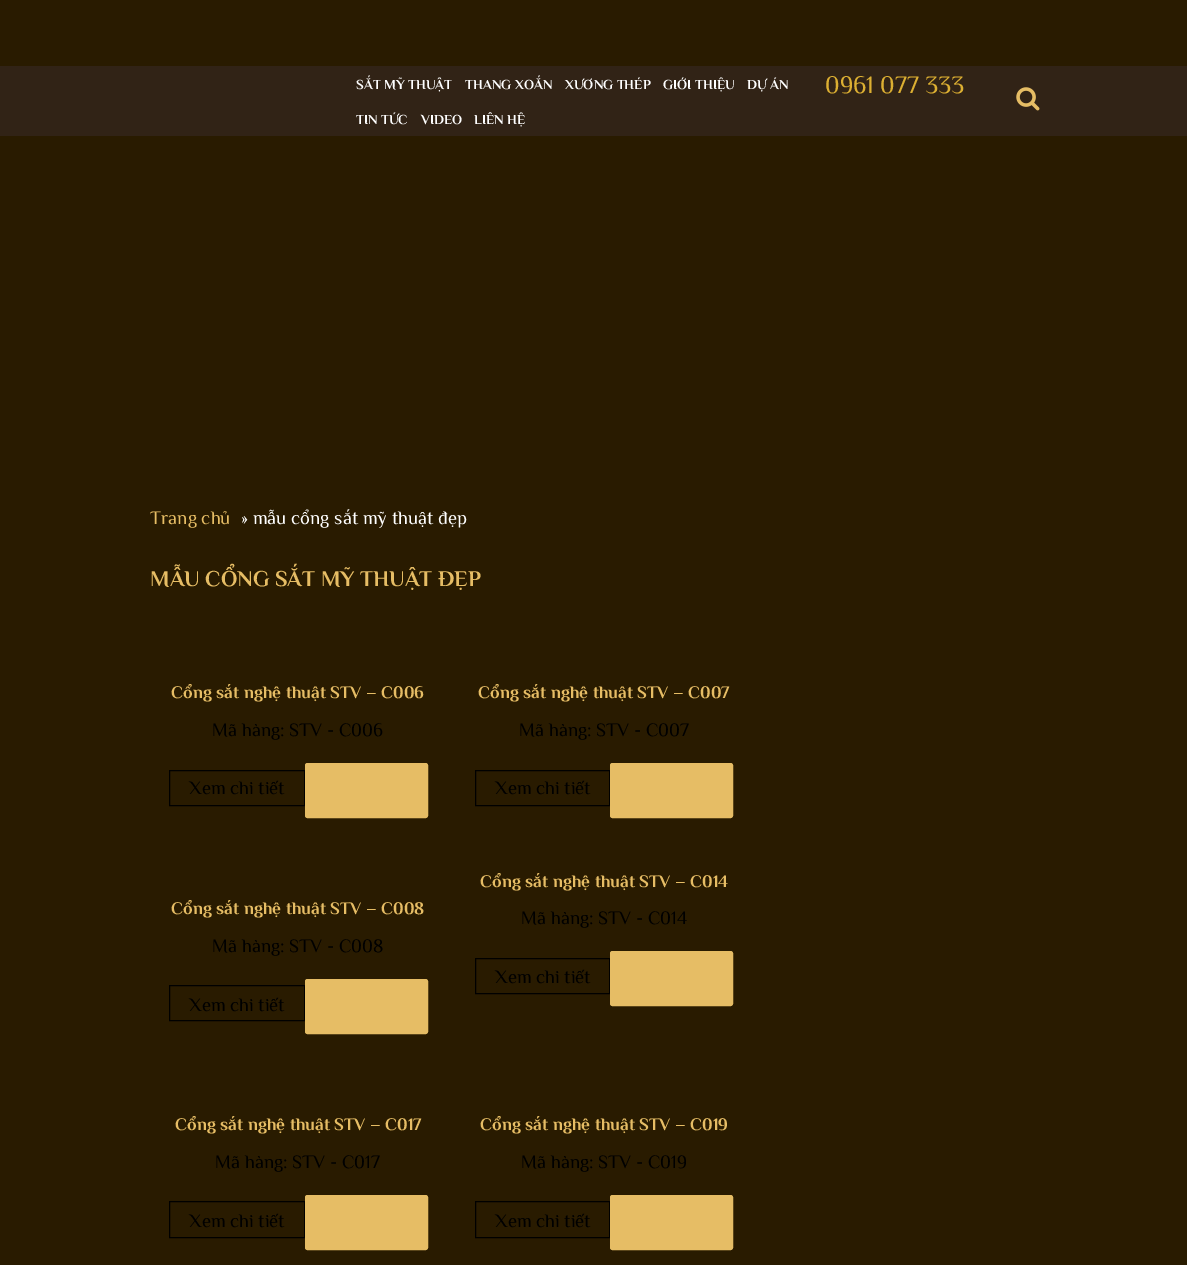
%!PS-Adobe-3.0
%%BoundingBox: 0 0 1187 1265
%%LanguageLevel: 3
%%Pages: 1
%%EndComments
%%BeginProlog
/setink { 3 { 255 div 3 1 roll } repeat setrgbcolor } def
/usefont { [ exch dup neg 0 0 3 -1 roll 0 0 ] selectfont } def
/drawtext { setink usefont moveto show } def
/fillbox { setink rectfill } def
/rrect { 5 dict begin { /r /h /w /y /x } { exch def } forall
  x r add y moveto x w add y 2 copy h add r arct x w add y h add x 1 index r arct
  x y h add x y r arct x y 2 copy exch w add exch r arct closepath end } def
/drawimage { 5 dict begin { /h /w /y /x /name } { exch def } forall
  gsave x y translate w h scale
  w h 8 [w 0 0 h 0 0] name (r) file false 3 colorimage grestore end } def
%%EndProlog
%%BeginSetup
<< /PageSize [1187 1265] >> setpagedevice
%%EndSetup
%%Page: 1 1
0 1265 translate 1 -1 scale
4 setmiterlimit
0 0 1187 1265 41 27 0 fillbox
0 66 1187 70 49 35 22 fillbox
(SẮT MỸ THUẬT) 356 89 /Philosopher-Bold 13.75 255 255 255 drawtext
(THANG XOẮN) 465 89 /Philosopher-Bold 13.75 255 255 255 drawtext
(XƯƠNG THÉP) 565 89 /Philosopher-Bold 13.75 255 255 255 drawtext
(GIỚI THIỆU) 663 89 /Philosopher-Bold 13.75 255 255 255 drawtext
(DỰ ÁN) 747 89 /Philosopher-Bold 13.75 255 255 255 drawtext
(TIN TỨC) 356 124 /Philosopher-Bold 13.75 255 255 255 drawtext
(VIDEO) 421 124 /Philosopher-Bold 13.75 255 255 255 drawtext
(LIÊN HỆ) 474 124 /Philosopher-Bold 13.75 255 255 255 drawtext
(0961 077 333) 825 93 /Philosopher-Regular 25 220 175 50 drawtext
(assets/img1.rgb) 1016 87 24 24 drawimage
(Trang chủ) 150 524 /Philosopher-Regular 18.75 230 189 101 drawtext
(» mẫu cổng sắt mỹ thuật đẹp) 241 524 /Philosopher-Regular 18.75 255 255 255 drawtext
(MẪU CỔNG SẮT MỸ THUẬT ĐẸP) 150 586 /Philosopher-Bold 22.5 230 189 101 drawtext
(Cổng sắt nghệ thuật STV – C006) 171 698 /Philosopher-Bold 17.5 230 189 101 drawtext
(Mã hàng: STV - C006) 212 736 /Philosopher-Regular 18.75 0 0 0 drawtext
169.5 770.5 135 35 rectstroke
(Xem chi tiết) 189 794 /Philosopher-Regular 18.75 0 0 0 drawtext
230 189 101 setink
306.5 764.5 120 52 1 rrect gsave fill grestore
3 setlinewidth
stroke
(Cổng sắt nghệ thuật STV – C007) 478 698 /Philosopher-Bold 17.5 230 189 101 drawtext
(Mã hàng: STV - C007) 519 736 /Philosopher-Regular 18.75 0 0 0 drawtext
1 setlinewidth
475.5 770.5 134 35 rectstroke
(Xem chi tiết) 495 794 /Philosopher-Regular 18.75 0 0 0 drawtext
230 189 101 setink
611.5 764.5 120 52 1 rrect gsave fill grestore
3 setlinewidth
stroke
(Cổng sắt nghệ thuật STV – C008) 171 914 /Philosopher-Bold 17.5 230 189 101 drawtext
(Mã hàng: STV - C008) 212 952 /Philosopher-Regular 18.75 0 0 0 drawtext
1 setlinewidth
169.5 985.5 135 35 rectstroke
(Xem chi tiết) 189 1011 /Philosopher-Regular 18.75 0 0 0 drawtext
230 189 101 setink
306.5 980.5 120 52 1 rrect gsave fill grestore
3 setlinewidth
stroke
(Cổng sắt nghệ thuật STV – C014) 480 887 /Philosopher-Bold 17.5 230 189 101 drawtext
(Mã hàng: STV - C014) 521 924 /Philosopher-Regular 18.75 0 0 0 drawtext
1 setlinewidth
475.5 958.5 134 35 rectstroke
(Xem chi tiết) 495 983 /Philosopher-Regular 18.75 0 0 0 drawtext
230 189 101 setink
611.5 952.5 120 52 1 rrect gsave fill grestore
3 setlinewidth
stroke
(Cổng sắt nghệ thuật STV – C017) 175 1130 /Philosopher-Bold 17.5 230 189 101 drawtext
(Mã hàng: STV - C017) 215 1168 /Philosopher-Regular 18.75 0 0 0 drawtext
1 setlinewidth
169.5 1201.5 135 36 rectstroke
(Xem chi tiết) 189 1227 /Philosopher-Regular 18.75 0 0 0 drawtext
230 189 101 setink
306.5 1196.5 120 52 1 rrect gsave fill grestore
3 setlinewidth
stroke
(Cổng sắt nghệ thuật STV – C019) 480 1130 /Philosopher-Bold 17.5 230 189 101 drawtext
(Mã hàng: STV - C019) 521 1168 /Philosopher-Regular 18.75 0 0 0 drawtext
1 setlinewidth
475.5 1201.5 134 36 rectstroke
(Xem chi tiết) 495 1227 /Philosopher-Regular 18.75 0 0 0 drawtext
230 189 101 setink
611.5 1196.5 120 52 1 rrect gsave fill grestore
3 setlinewidth
stroke
showpage
%%EOF
